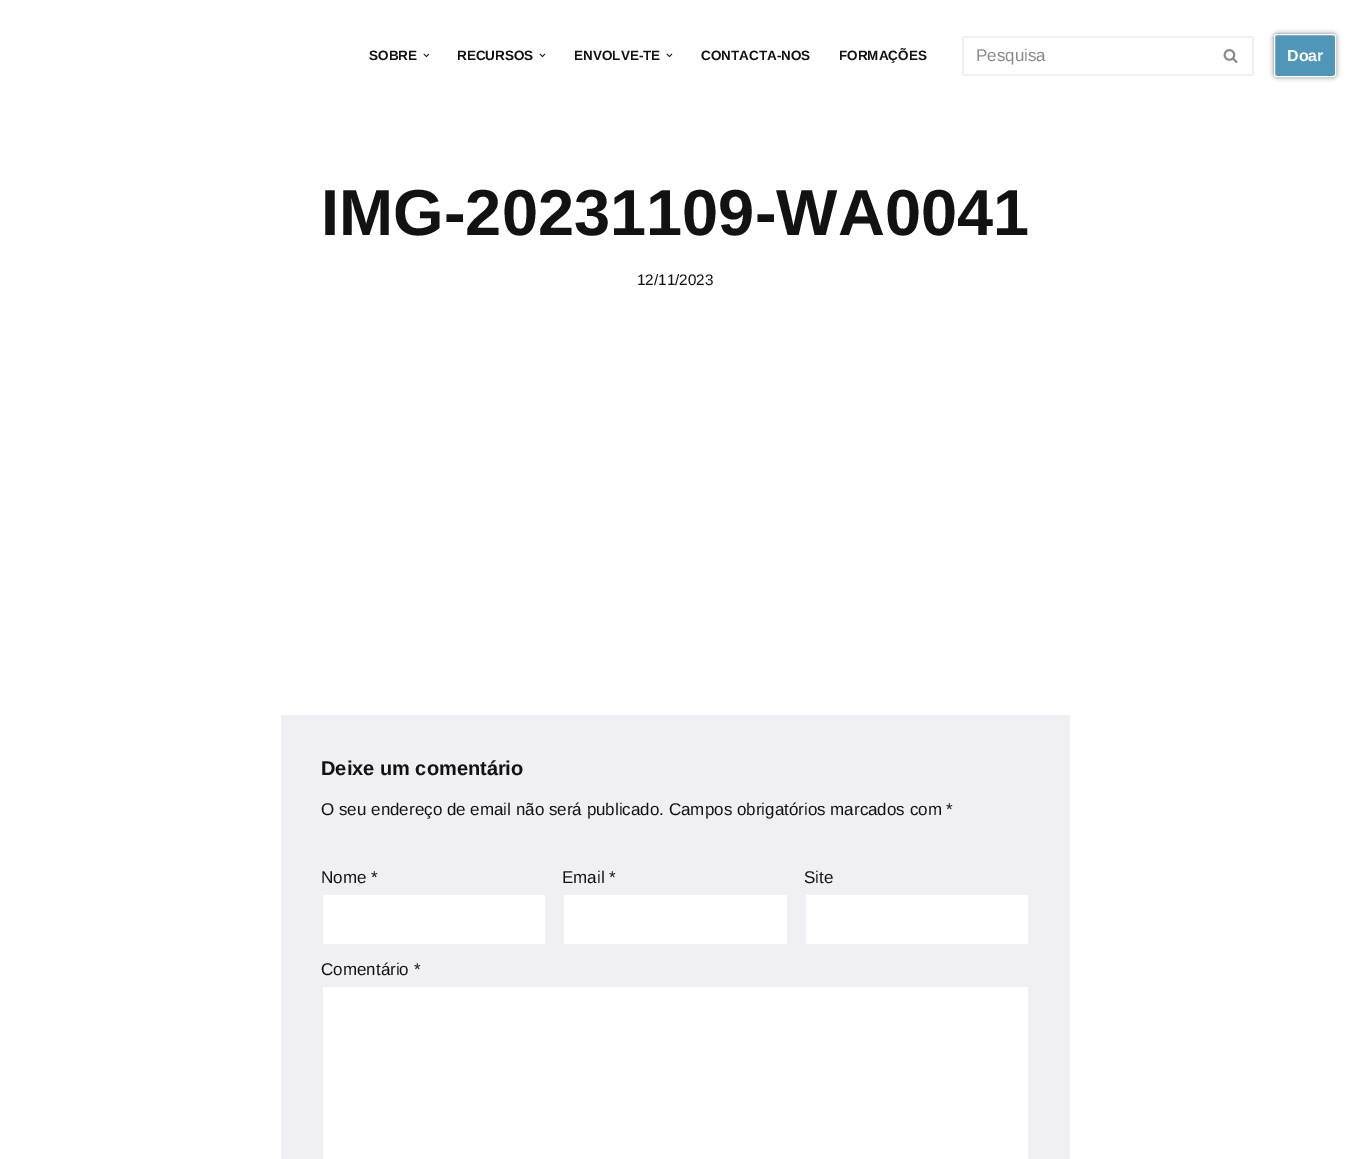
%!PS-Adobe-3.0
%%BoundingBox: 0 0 1351 1159
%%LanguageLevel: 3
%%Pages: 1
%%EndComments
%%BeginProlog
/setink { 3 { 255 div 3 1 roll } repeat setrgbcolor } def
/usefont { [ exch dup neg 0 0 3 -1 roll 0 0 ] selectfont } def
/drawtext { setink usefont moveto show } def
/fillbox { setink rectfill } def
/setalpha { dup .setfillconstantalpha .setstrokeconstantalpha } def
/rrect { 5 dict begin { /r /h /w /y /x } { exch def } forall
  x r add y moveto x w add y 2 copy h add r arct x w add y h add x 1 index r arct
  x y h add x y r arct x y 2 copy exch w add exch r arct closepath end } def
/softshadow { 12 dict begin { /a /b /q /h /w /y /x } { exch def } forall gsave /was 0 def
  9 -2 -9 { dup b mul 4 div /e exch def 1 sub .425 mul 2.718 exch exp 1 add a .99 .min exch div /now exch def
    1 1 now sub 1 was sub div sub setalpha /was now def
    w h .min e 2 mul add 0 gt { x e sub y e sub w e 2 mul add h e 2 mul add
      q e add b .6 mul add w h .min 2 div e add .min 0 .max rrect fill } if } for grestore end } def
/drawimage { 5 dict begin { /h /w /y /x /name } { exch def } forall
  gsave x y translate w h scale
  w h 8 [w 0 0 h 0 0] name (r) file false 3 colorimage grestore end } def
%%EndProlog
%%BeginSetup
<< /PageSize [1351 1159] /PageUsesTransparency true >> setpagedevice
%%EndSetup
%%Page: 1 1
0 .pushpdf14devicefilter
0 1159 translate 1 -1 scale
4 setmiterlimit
0 0 1351 1159 255 255 255 fillbox
(SOBRE) 369 60 /LiberationSans-Bold 13.5 18 18 18 drawtext
(assets/img1.rgb) 423 53 6 5 drawimage
(RECURSOS) 457 60 /LiberationSans-Bold 13.5 18 18 18 drawtext
(assets/img2.rgb) 539 53 7 5 drawimage
(ENVOLVE-TE) 574 60 /LiberationSans-Bold 13.5 18 18 18 drawtext
(assets/img2.rgb) 666 53 7 5 drawimage
(CONTACTA-NOS) 701 60 /LiberationSans-Bold 13.5 18 18 18 drawtext
(FORMAÇÕES) 839 60 /LiberationSans-Bold 13.5 18 18 18 drawtext
963 36 290 2 240 239 244 fillbox
963 74 246 2 240 239 244 fillbox
962 37 2 38 240 239 244 fillbox
(Pesquisa) 976 61 /LiberationSans-Regular 17 137 137 137 drawtext
1252 37 2 38 240 239 244 fillbox
1209 74 44 2 240 239 244 fillbox
(assets/img3.rgb) 1223 49 15 14 drawimage
gsave
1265 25 moveto 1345 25 lineto 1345 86 lineto 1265 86 lineto closepath 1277 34 moveto 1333 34 lineto 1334.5 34 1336 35.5 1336 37 curveto 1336 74 lineto 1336 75.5 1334.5 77 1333 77 curveto 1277 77 lineto 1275.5 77 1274 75.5 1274 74 curveto 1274 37 lineto 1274 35.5 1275.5 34 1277 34 curveto closepath eoclip newpath
0 0 0 setink
1274 34 62 43 3 2.5 0.5 softshadow
grestore
0.69 setalpha
2 103 154 setink
1274.5 34.5 61 42 2.5 rrect fill
1 setalpha
255 255 255 setink
1274.5 34.5 61 42 2.5 rrect stroke
(Doar) 1287 61 /LiberationSans-Bold 16 255 255 255 drawtext
(IMG-20231109-WA0041) 321 235 /LiberationSans-Bold 65 18 18 18 drawtext
(12/11/2023) 637 285 /LiberationSans-Regular 15.25 18 18 18 drawtext
281 715 789 444 240 239 244 fillbox
(Deixe um comentário) 321 775 /LiberationSans-Bold 20 18 18 18 drawtext
(O seu endereço de email não será publicado. Campos obrigatórios marcados com *) 321 815 /LiberationSans-Regular 17 18 18 18 drawtext
(Nome *) 321 883 /LiberationSans-Regular 17 18 18 18 drawtext
323 895 222 49 255 255 255 fillbox
(Email *) 562 883 /LiberationSans-Regular 17 18 18 18 drawtext
564 895 223 49 255 255 255 fillbox
(Site) 804 883 /LiberationSans-Regular 17 18 18 18 drawtext
806 895 222 49 255 255 255 fillbox
(Comentário *) 321 975 /LiberationSans-Regular 17 18 18 18 drawtext
323 987 705 172 255 255 255 fillbox
.poppdf14devicefilter showpage
%%EOF
